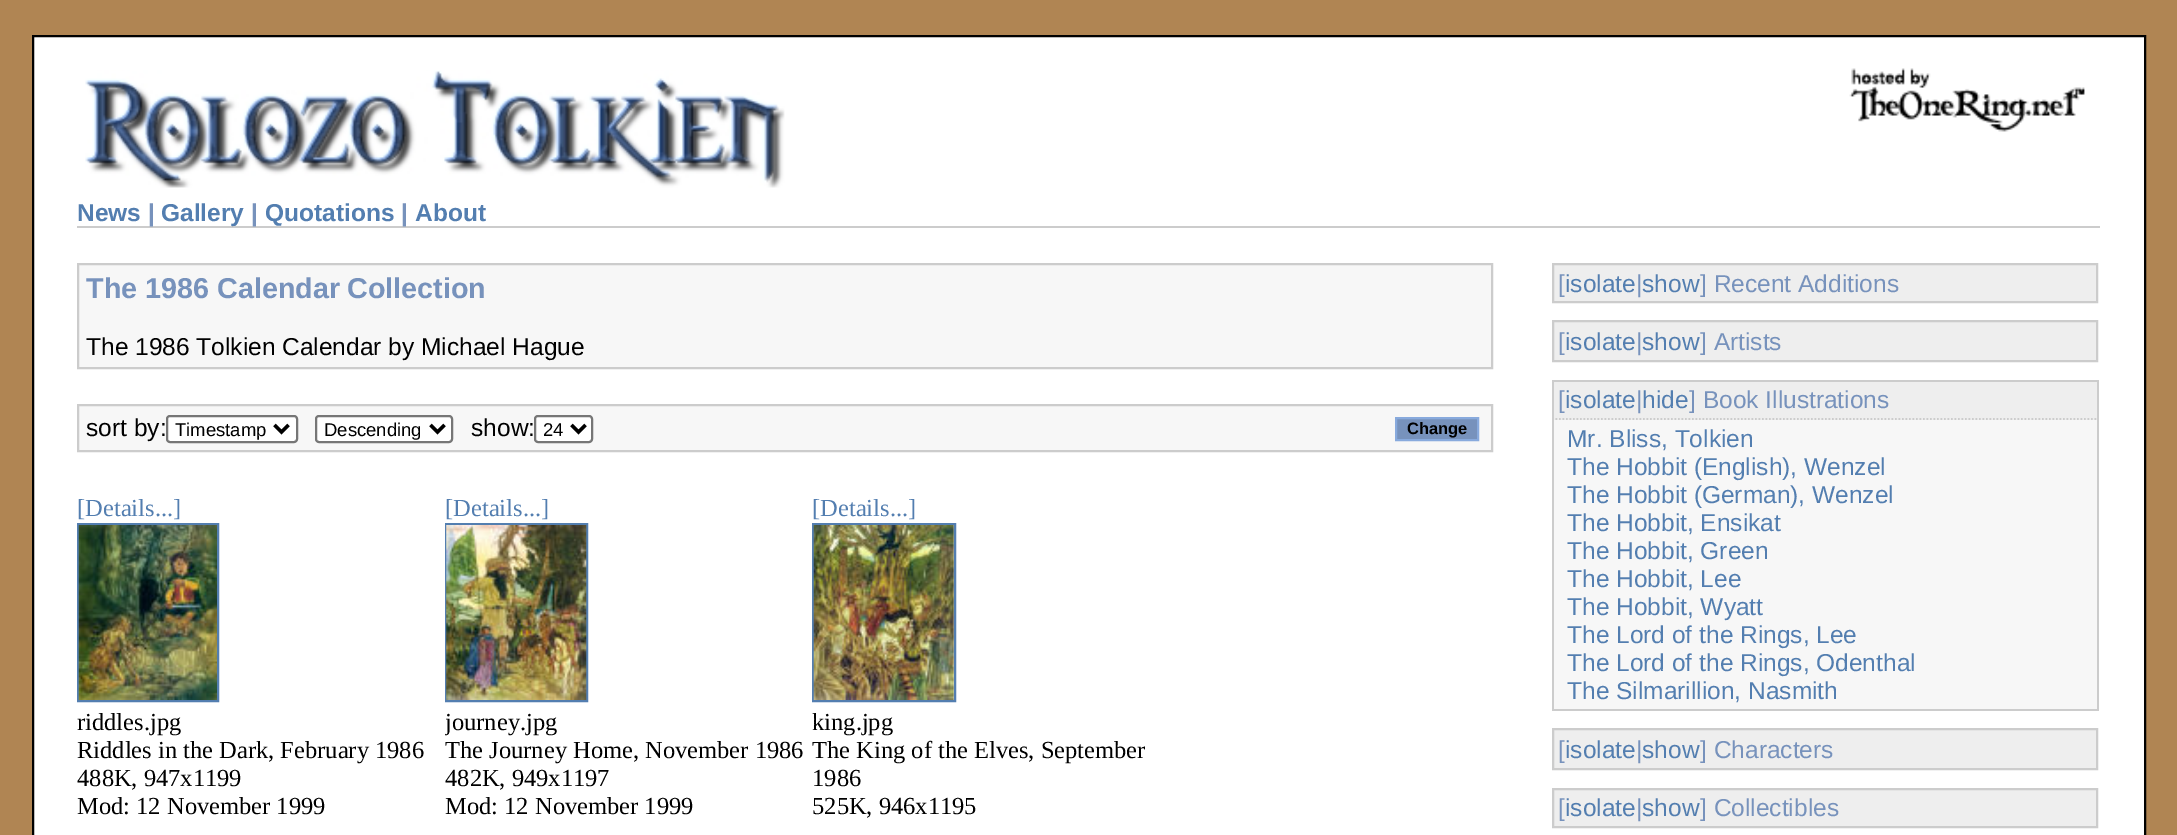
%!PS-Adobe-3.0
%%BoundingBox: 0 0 2177 835
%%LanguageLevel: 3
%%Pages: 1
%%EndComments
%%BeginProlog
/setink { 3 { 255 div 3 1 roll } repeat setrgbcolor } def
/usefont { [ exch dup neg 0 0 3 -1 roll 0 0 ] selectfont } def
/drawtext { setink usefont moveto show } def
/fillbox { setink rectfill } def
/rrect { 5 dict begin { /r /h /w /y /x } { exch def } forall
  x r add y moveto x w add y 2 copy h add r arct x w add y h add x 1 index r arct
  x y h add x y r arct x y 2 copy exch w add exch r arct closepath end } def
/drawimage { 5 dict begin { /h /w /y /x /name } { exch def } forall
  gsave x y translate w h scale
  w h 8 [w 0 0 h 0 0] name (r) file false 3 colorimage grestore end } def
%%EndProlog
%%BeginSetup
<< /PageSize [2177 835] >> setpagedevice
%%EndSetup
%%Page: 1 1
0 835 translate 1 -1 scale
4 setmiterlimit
0 0 2177 835 176 133 83 fillbox
255 255 255 setink
33 36 moveto 2145 36 lineto 2145 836 lineto 33 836 lineto closepath gsave fill grestore
0 0 0 setink
2 setlinewidth
stroke
(assets/img1.rgb) 85 70 700 118 drawimage
(assets/img2.rgb) 1849 68 236 64 drawimage
77 226 2023 2 204 204 204 fillbox
(News) 77 221 /LiberationSans-Bold 24.5 83 126 176 drawtext
(|) 148 221 /LiberationSans-Bold 24.5 119 146 188 drawtext
(Gallery) 161 221 /LiberationSans-Bold 24.5 83 126 176 drawtext
(|) 251 221 /LiberationSans-Bold 24.5 119 146 188 drawtext
(Quotations) 265 221 /LiberationSans-Bold 24.5 83 126 176 drawtext
(|) 401 221 /LiberationSans-Bold 24.5 119 146 188 drawtext
(About) 415 221 /LiberationSans-Bold 24.5 83 126 176 drawtext
247 247 247 setink
78 264 moveto 1492 264 lineto 1492 368 lineto 78 368 lineto closepath gsave fill grestore
204 204 204 setink
stroke
(The 1986 Calendar) 86 298 /LiberationSans-Bold 28.75 119 146 188 drawtext
(Collection) 347 298 /LiberationSans-Bold 28.75 119 146 188 drawtext
(The 1986 Tolkien Calendar by Michael Hague) 86 355 /LiberationSans-Regular 24.5 0 0 0 drawtext
247 247 247 setink
78 405 moveto 1492 405 lineto 1492 451 lineto 78 451 lineto closepath gsave fill grestore
204 204 204 setink
stroke
(sort by:) 86 436 /LiberationSans-Regular 24.5 0 0 0 drawtext
255 255 255 setink
167 416 130 26 3 rrect gsave fill grestore
118 118 118 setink
stroke
0 0 0 setink
3.5 setlinewidth
274.5 425 moveto 281.5 432 lineto 288.5 425 lineto stroke
(Timestamp) 175 436 /LiberationSans-Regular 18.5 0 0 0 drawtext
255 255 255 setink
316 416 136 26 3 rrect gsave fill grestore
118 118 118 setink
2 setlinewidth
stroke
0 0 0 setink
3.5 setlinewidth
430.5 425 moveto 437.5 432 lineto 444.5 425 lineto stroke
(Descending) 324 436 /LiberationSans-Regular 18.5 0 0 0 drawtext
(show:) 471 436 /LiberationSans-Regular 24.5 0 0 0 drawtext
255 255 255 setink
535 416 57 26 3 rrect gsave fill grestore
118 118 118 setink
2 setlinewidth
stroke
0 0 0 setink
3.5 setlinewidth
571.5 425 moveto 578.5 432 lineto 585.5 425 lineto stroke
(24) 543 436 /LiberationSans-Regular 18.5 0 0 0 drawtext
119 146 188 setink
1396 418 moveto 1478 418 lineto 1478 440 lineto 1396 440 lineto closepath gsave fill grestore
136 170 221 setink
2 setlinewidth
stroke
(Change) 1407 434 /LiberationSans-Bold 16.5 0 0 0 drawtext
([Details...]) 77 516 /LiberationSerif-Regular 24.5 83 126 176 drawtext
78 524 140 177 rectstroke
(assets/img3.rgb) 78 525 139 175 drawimage
(riddles.jpg) 77 730 /LiberationSerif-Regular 24.5 0 0 0 drawtext
(Riddles in the Dark, February 1986) 77 758 /LiberationSerif-Regular 24.5 0 0 0 drawtext
(488K, 947x1199) 77 786 /LiberationSerif-Regular 24.5 0 0 0 drawtext
(Mod: 12 November 1999) 77 814 /LiberationSerif-Regular 24.5 0 0 0 drawtext
([Details...]) 445 516 /LiberationSerif-Regular 24.5 83 126 176 drawtext
446 524 141 177 rectstroke
(assets/img4.rgb) 446 525 141 175 drawimage
gsave
445 709 343 28 rectclip
(journey.jpg) 445 730 /LiberationSerif-Regular 24.5 0 0 0 drawtext
grestore
(The Journey Home, November 1986) 445 758 /LiberationSerif-Regular 24.5 0 0 0 drawtext
(482K, 949x1197) 445 786 /LiberationSerif-Regular 24.5 0 0 0 drawtext
(Mod: 12 November 1999) 445 814 /LiberationSerif-Regular 24.5 0 0 0 drawtext
([Details...]) 812 516 /LiberationSerif-Regular 24.5 83 126 176 drawtext
813 524 142 177 rectstroke
(assets/img5.rgb) 813 525 141 175 drawimage
(king.jpg) 812 730 /LiberationSerif-Regular 24.5 0 0 0 drawtext
(The King of the Elves, September) 812 758 /LiberationSerif-Regular 24.5 0 0 0 drawtext
(1986) 812 786 /LiberationSerif-Regular 24.5 0 0 0 drawtext
(525K, 946x1195) 812 814 /LiberationSerif-Regular 24.5 0 0 0 drawtext
238 238 238 setink
1553 264 moveto 2097 264 lineto 2097 302 lineto 1553 302 lineto closepath gsave fill grestore
204 204 204 setink
stroke
([) 1558 292 /LiberationSans-Regular 24.5 119 146 188 drawtext
(isolate) 1565 292 /LiberationSans-Regular 24.5 83 126 176 drawtext
(|) 1636 292 /LiberationSans-Regular 24.5 119 146 188 drawtext
(show) 1642 292 /LiberationSans-Regular 24.5 83 126 176 drawtext
(] Recent Additions) 1700 292 /LiberationSans-Regular 24.5 119 146 188 drawtext
238 238 238 setink
1553 321 moveto 2097 321 lineto 2097 361 lineto 1553 361 lineto closepath gsave fill grestore
204 204 204 setink
stroke
([) 1558 350 /LiberationSans-Regular 24.5 119 146 188 drawtext
(isolate) 1565 350 /LiberationSans-Regular 24.5 83 126 176 drawtext
(|) 1636 350 /LiberationSans-Regular 24.5 119 146 188 drawtext
(show) 1642 350 /LiberationSans-Regular 24.5 83 126 176 drawtext
(] Artists) 1700 350 /LiberationSans-Regular 24.5 119 146 188 drawtext
1554 382 543 38 238 238 238 fillbox
1552 380 546 2 204 204 204 fillbox
2097 380 2 331 204 204 204 fillbox
1.8 setlinewidth
[1.75 1.75] 0 setdash
1552 419 moveto 2098 419 lineto stroke
1552 380 2 40 204 204 204 fillbox
([) 1558 408 /LiberationSans-Regular 24.5 119 146 188 drawtext
(isolate) 1565 408 /LiberationSans-Regular 24.5 83 126 176 drawtext
(|) 1636 408 /LiberationSans-Regular 24.5 119 146 188 drawtext
(hide) 1642 408 /LiberationSans-Regular 24.5 83 126 176 drawtext
(] Book Illustrations) 1689 408 /LiberationSans-Regular 24.5 119 146 188 drawtext
1554 420 543 289 247 247 247 fillbox
1552 709 546 2 204 204 204 fillbox
1552 420 2 291 204 204 204 fillbox
(Mr. Bliss, Tolkien) 1567 447 /LiberationSans-Regular 24.5 83 126 176 drawtext
(The Hobbit \(English\), Wenzel) 1567 475 /LiberationSans-Regular 24.5 83 126 176 drawtext
(The Hobbit \(German\), Wenzel) 1567 503 /LiberationSans-Regular 24.5 83 126 176 drawtext
(The Hobbit, Ensikat) 1567 531 /LiberationSans-Regular 24.5 83 126 176 drawtext
(The Hobbit, Green) 1567 559 /LiberationSans-Regular 24.5 83 126 176 drawtext
(The Hobbit, Lee) 1567 587 /LiberationSans-Regular 24.5 83 126 176 drawtext
(The Hobbit, Wyatt) 1567 615 /LiberationSans-Regular 24.5 83 126 176 drawtext
(The Lord of the Rings, Lee) 1567 643 /LiberationSans-Regular 24.5 83 126 176 drawtext
(The Lord of the Rings, Odenthal) 1567 671 /LiberationSans-Regular 24.5 83 126 176 drawtext
(The Silmarillion, Nasmith) 1567 699 /LiberationSans-Regular 24.5 83 126 176 drawtext
238 238 238 setink
1553 729 moveto 2097 729 lineto 2097 769 lineto 1553 769 lineto closepath gsave fill grestore
204 204 204 setink
2 setlinewidth
[] 0 setdash
stroke
([) 1558 758 /LiberationSans-Regular 24.5 119 146 188 drawtext
(isolate) 1565 758 /LiberationSans-Regular 24.5 83 126 176 drawtext
(|) 1636 758 /LiberationSans-Regular 24.5 119 146 188 drawtext
(show) 1642 758 /LiberationSans-Regular 24.5 83 126 176 drawtext
(] Characters) 1700 758 /LiberationSans-Regular 24.5 119 146 188 drawtext
238 238 238 setink
1553 789 moveto 2097 789 lineto 2097 827 lineto 1553 827 lineto closepath gsave fill grestore
204 204 204 setink
stroke
([) 1558 816 /LiberationSans-Regular 24.5 119 146 188 drawtext
(isolate) 1565 816 /LiberationSans-Regular 24.5 83 126 176 drawtext
(|) 1636 816 /LiberationSans-Regular 24.5 119 146 188 drawtext
(show) 1642 816 /LiberationSans-Regular 24.5 83 126 176 drawtext
(] Collectibles) 1700 816 /LiberationSans-Regular 24.5 119 146 188 drawtext
showpage
%%EOF
